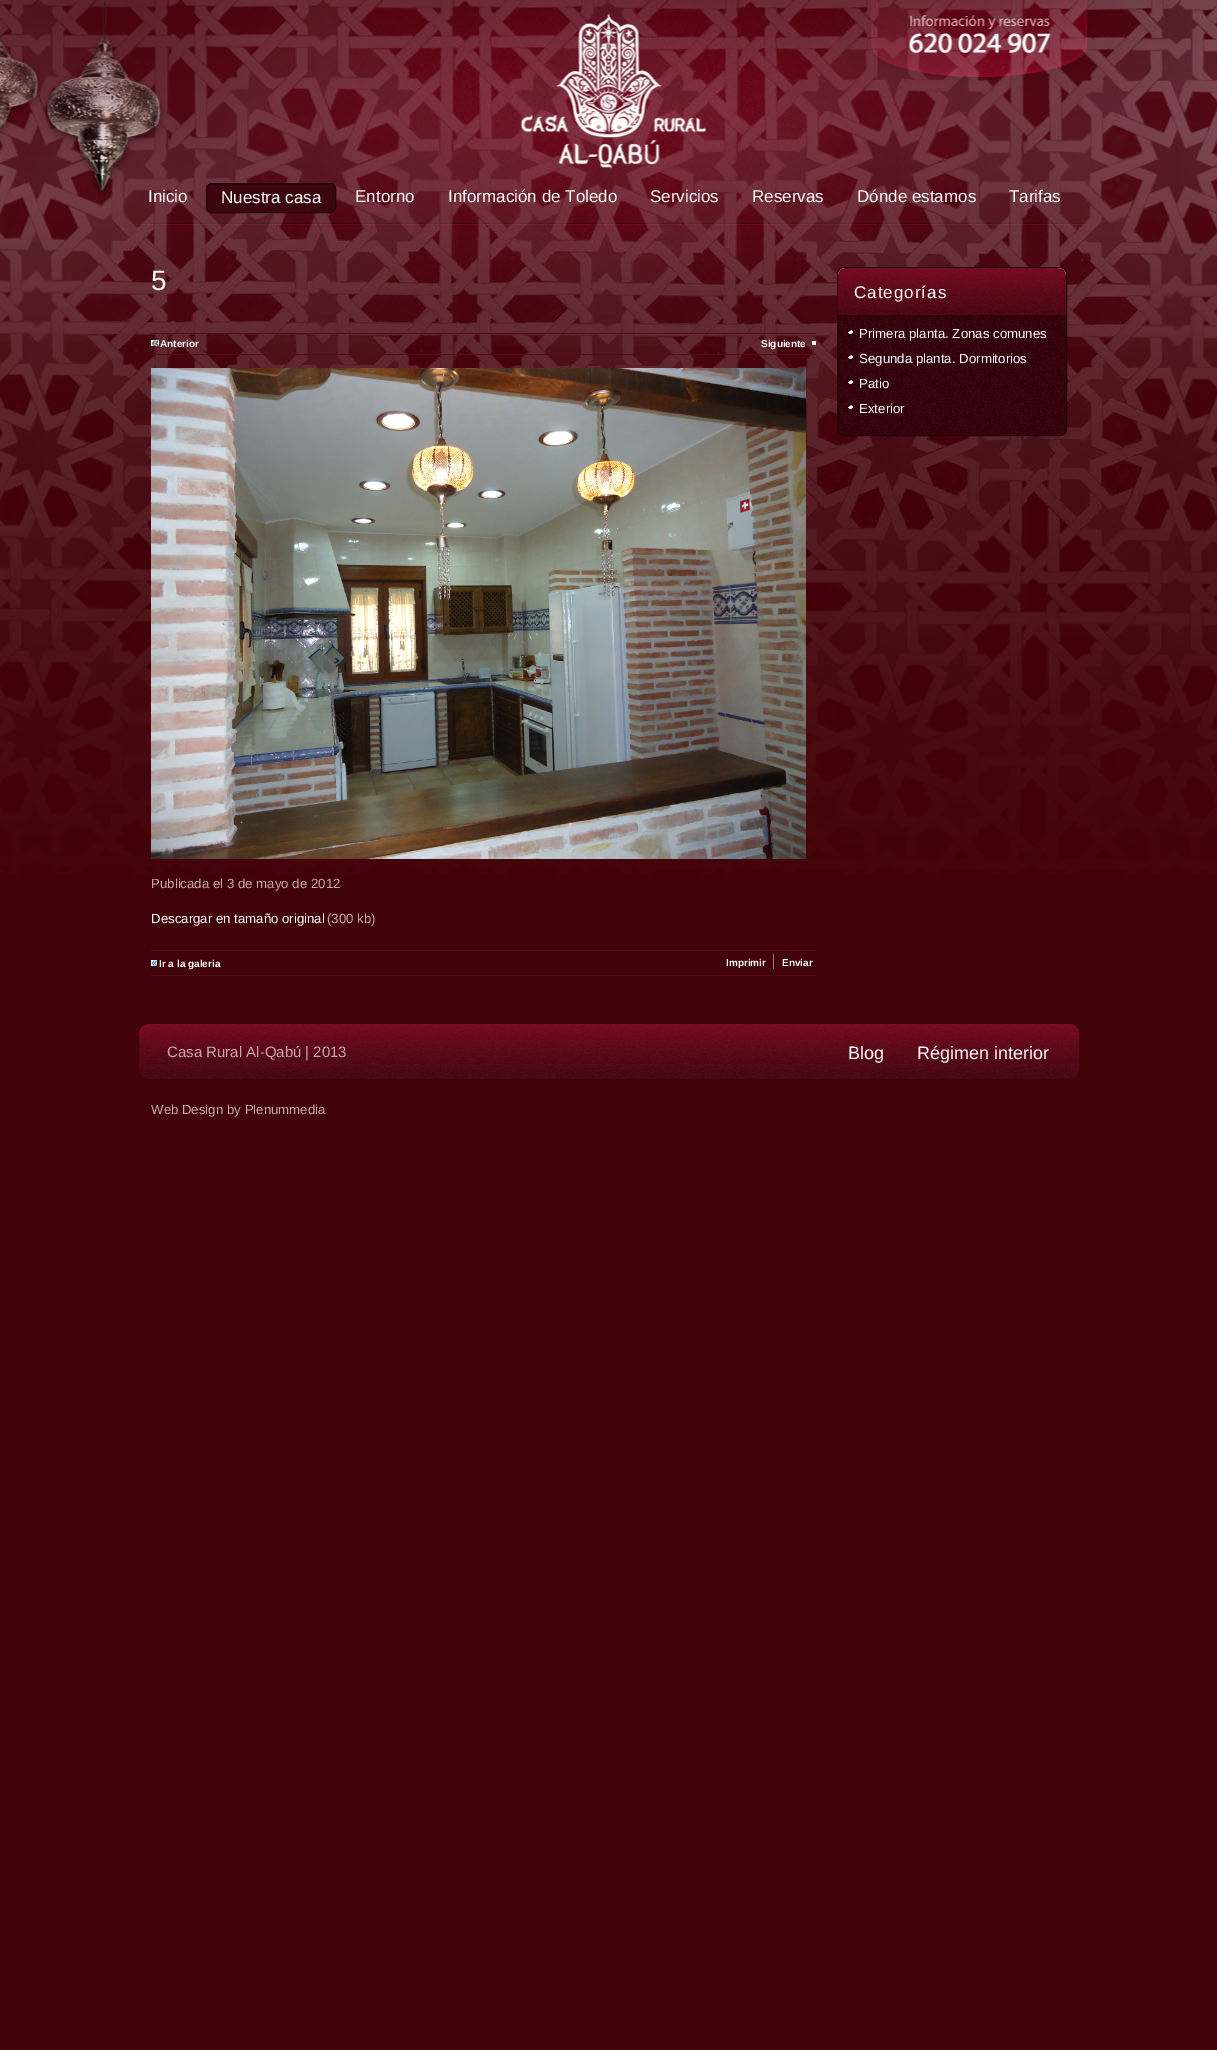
%!PS-Adobe-3.0
%%BoundingBox: 0 0 1217 2050
%%LanguageLevel: 3
%%Pages: 1
%%EndComments
%%BeginProlog
/setink { 3 { 255 div 3 1 roll } repeat setrgbcolor } def
/usefont { [ exch dup neg 0 0 3 -1 roll 0 0 ] selectfont } def
/drawtext { setink usefont moveto show } def
/fillbox { setink rectfill } def
/rrect { 5 dict begin { /r /h /w /y /x } { exch def } forall
  x r add y moveto x w add y 2 copy h add r arct x w add y h add x 1 index r arct
  x y h add x y r arct x y 2 copy exch w add exch r arct closepath end } def
/drawimage { 5 dict begin { /h /w /y /x /name } { exch def } forall
  gsave x y translate w h scale
  w h 8 [w 0 0 h 0 0] name (r) file false 3 colorimage grestore end } def
%%EndProlog
%%BeginSetup
<< /PageSize [1217 2050] >> setpagedevice
%%EndSetup
%%Page: 1 1
0 2050 translate 1 -1 scale
4 setmiterlimit
0 0 1217 2050 65 2 10 fillbox
(assets/img1.rgb) 0 0 1217 874 drawimage
(Inicio) 148 202 /LiberationSans-Regular 17 255 255 255 drawtext
60 6 15 setink
206.5 183.5 129 29 5.5 rrect gsave fill grestore
33 2 7 setink
stroke
(Nuestra casa) 221 203 /LiberationSans-Regular 17 255 255 255 drawtext
(Entorno) 355 202 /LiberationSans-Regular 17 255 255 255 drawtext
(Información de Toledo) 448 202 /LiberationSans-Regular 17 255 255 255 drawtext
(Servicios) 650 202 /LiberationSans-Regular 17 255 255 255 drawtext
(Reservas) 752 202 /LiberationSans-Regular 17 255 255 255 drawtext
(Dónde estamos) 857 202 /LiberationSans-Regular 17 255 255 255 drawtext
(Tarifas) 1009 202 /LiberationSans-Regular 17 255 255 255 drawtext
/LiberationSans-Regular 28 usefont
151 290 moveto 1 0 (5) ashow
151 333 665 1 82 12 26 fillbox
151 354 665 1 82 12 26 fillbox
(assets/img2.rgb) 151 340 8 6 drawimage
(Anterior) 160 347 /LiberationSans-Bold 10 255 255 255 drawtext
812 341 4 4 255 255 255 fillbox
(Siguiente) 761 347 /LiberationSans-Bold 10 255 255 255 drawtext
(assets/img3.rgb) 151 368 655 491 drawimage
(Publicada el 3 de mayo de 2012) 151 888 /LiberationSans-Regular 13.25 198 168 173 drawtext
(Descargar en tamaño original) 151 923 /LiberationSans-Regular 13.25 255 255 255 drawtext
(\(300 kb\)) 327 923 /LiberationSans-Regular 13.25 198 168 173 drawtext
(assets/img4.rgb) 151 960 6 6 drawimage
(Ir a la galeria) 159 967 /LiberationSans-Bold 10 255 255 255 drawtext
151 950 665 1 82 12 26 fillbox
151 975 665 1 82 12 26 fillbox
(Imprimir) 726 966 /LiberationSans-Bold 10 255 255 255 drawtext
(Enviar) 782 966 /LiberationSans-Bold 10 255 255 255 drawtext
773 954 1 15 130 131 132 fillbox
(assets/img5.rgb) 837 267 230 169 drawimage
33 2 7 setink
837.5 267.5 229 168 6.5 rrect stroke
gsave
838 268 228 167 6 rrect clip newpath
gsave 845 268 moveto 1059 268 lineto 1063 268 1066 271 1066 275 curveto 1066 315 lineto 838 315 lineto 838 275 lineto 838 271 841 268 845 268 curveto closepath clip newpath
<< /ShadingType 2 /ColorSpace /DeviceRGB /Coords [838 268 838 315] /Extend [true true] /Function << /FunctionType 2 /Domain [0 1] /C0 [1 1 1] /C1 [0.91 0.91 0.91] /N 1 >> >> shfill grestore
grestore
(assets/img6.rgb) 838 268 228 47 drawimage
/LiberationSans-Regular 17 usefont
255 255 255 setink
854 298 moveto 1 0 (Categorías) ashow
(assets/img7.rgb) 848 330 5 4 drawimage
(Primera planta. Zonas comunes) 859 338 /LiberationSans-Regular 13.25 255 255 255 drawtext
(assets/img8.rgb) 848 355 5 4 drawimage
(Segunda planta. Dormitorios) 859 363 /LiberationSans-Regular 13.25 255 255 255 drawtext
(assets/img9.rgb) 848 380 5 4 drawimage
(Patio) 859 388 /LiberationSans-Regular 13.25 255 255 255 drawtext
(assets/img10.rgb) 848 405 5 4 drawimage
(Exterior) 859 413 /LiberationSans-Regular 13.25 255 255 255 drawtext
(assets/img11.rgb) 139 1024 940 55 drawimage
(Casa Rural Al-Qabú | 2013) 167 1057 /LiberationSans-Regular 15 198 168 173 drawtext
(Blog) 848 1059 /LiberationSans-Regular 18 255 255 255 drawtext
(Régimen interior) 917 1059 /LiberationSans-Regular 18 255 255 255 drawtext
(Web Design by Plenummedia) 151 1114 /LiberationSans-Regular 13.25 198 168 173 drawtext
showpage
%%EOF
